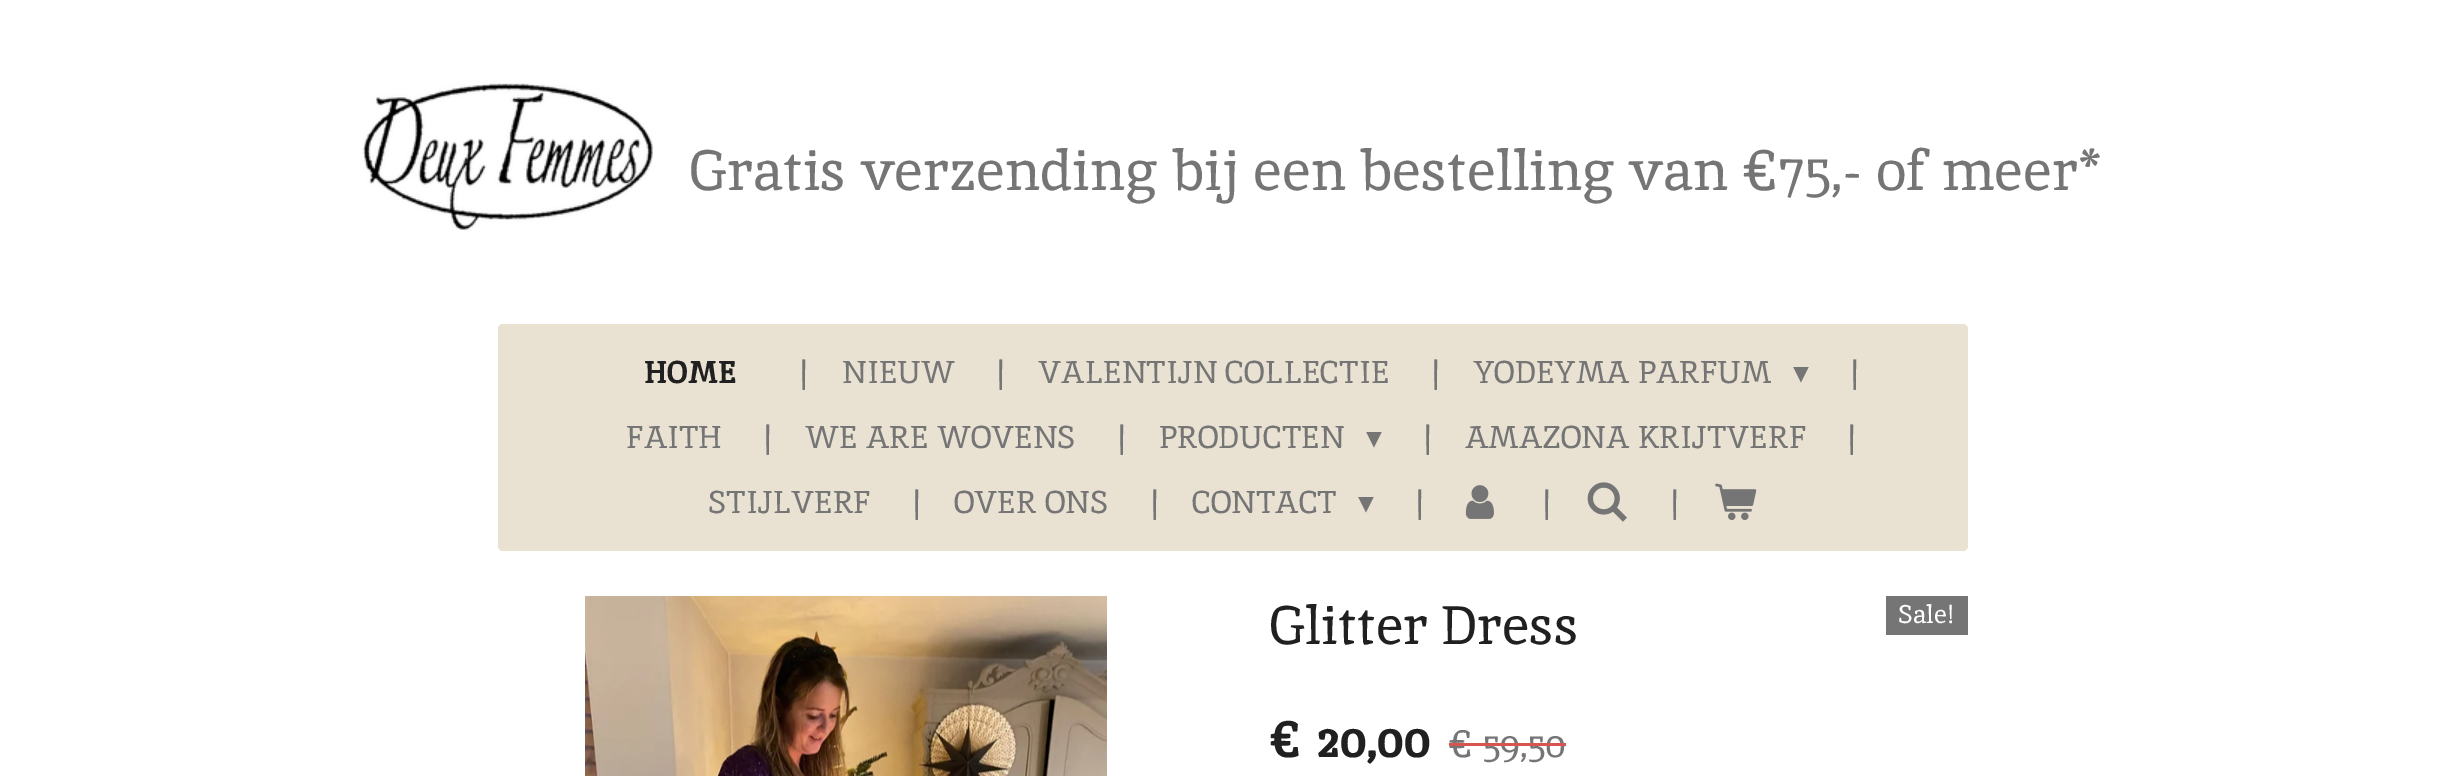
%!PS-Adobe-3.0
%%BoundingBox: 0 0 2464 776
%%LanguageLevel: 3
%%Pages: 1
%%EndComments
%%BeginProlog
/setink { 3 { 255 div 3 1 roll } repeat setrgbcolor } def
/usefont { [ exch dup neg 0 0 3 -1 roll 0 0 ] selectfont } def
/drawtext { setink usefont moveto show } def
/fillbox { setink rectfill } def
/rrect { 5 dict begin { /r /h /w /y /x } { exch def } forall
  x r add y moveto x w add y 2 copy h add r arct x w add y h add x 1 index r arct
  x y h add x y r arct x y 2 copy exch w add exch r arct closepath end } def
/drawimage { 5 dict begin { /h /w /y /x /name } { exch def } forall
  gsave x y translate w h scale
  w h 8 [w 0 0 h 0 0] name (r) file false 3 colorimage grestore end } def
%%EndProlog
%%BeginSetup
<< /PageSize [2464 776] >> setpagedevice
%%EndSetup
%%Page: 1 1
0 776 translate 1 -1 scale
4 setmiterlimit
0 0 2464 776 255 255 255 fillbox
(assets/img1.rgb) 362 83 291 147 drawimage
(Gratis verzending bij een bestelling van €75,- of meer*) 690 190 /Inika-Regular 56.7 117 117 117 drawtext
233 225 210 setink
498 324 1470 227 5 rrect fill
(HOME) 644 383 /Inika-Bold 31.5 32 32 32 drawtext
(|) 799 383 /Inika-Regular 31.5 117 117 117 drawtext
(NIEUW) 842 383 /Inika-Regular 31.5 117 117 117 drawtext
(|) 996 383 /Inika-Regular 31.5 117 117 117 drawtext
(VALENTIJN COLLECTIE) 1038 383 /Inika-Regular 31.5 117 117 117 drawtext
(|) 1431 383 /Inika-Regular 31.5 117 117 117 drawtext
(YODEYMA PARFUM) 1473 383 /Inika-Regular 31.5 117 117 117 drawtext
(▾) 1793 383 /DejaVuSans-Regular 31.5 117 117 117 drawtext
(|) 1850 383 /Inika-Regular 31.5 117 117 117 drawtext
(FAITH) 626 448 /Inika-Regular 31.5 117 117 117 drawtext
(|) 763 448 /Inika-Regular 31.5 117 117 117 drawtext
(WE ARE WOVENS) 805 448 /Inika-Regular 31.5 117 117 117 drawtext
(|) 1117 448 /Inika-Regular 31.5 117 117 117 drawtext
(PRODUCTEN) 1159 448 /Inika-Regular 31.5 117 117 117 drawtext
(▾) 1366 448 /DejaVuSans-Regular 31.5 117 117 117 drawtext
(|) 1423 448 /Inika-Regular 31.5 117 117 117 drawtext
(AMAZONA KRIJTVERF) 1465 448 /Inika-Regular 31.5 117 117 117 drawtext
(|) 1847 448 /Inika-Regular 31.5 117 117 117 drawtext
(STIJLVERF) 708 513 /Inika-Regular 31.5 117 117 117 drawtext
(|) 912 513 /Inika-Regular 31.5 117 117 117 drawtext
(OVER ONS) 954 513 /Inika-Regular 31.5 117 117 117 drawtext
(|) 1150 513 /Inika-Regular 31.5 117 117 117 drawtext
(CONTACT) 1192 513 /Inika-Regular 31.5 117 117 117 drawtext
(▾) 1358 513 /DejaVuSans-Regular 31.5 117 117 117 drawtext
(|) 1415 513 /Inika-Regular 31.5 117 117 117 drawtext
(assets/img2.rgb) 1465 485 29 34 drawimage
(|) 1542 513 /Inika-Regular 31.5 117 117 117 drawtext
(assets/img3.rgb) 1587 482 40 40 drawimage
(|) 1670 513 /Inika-Regular 31.5 117 117 117 drawtext
(assets/img4.rgb) 1715 483 42 37 drawimage
(assets/img5.rgb) 585 596 522 180 drawimage
(Glitter Dress) 1270 644 /Inika-Regular 54 32 32 32 drawtext
1886 596 82 39 117 117 117 fillbox
(Sale!) 1898 623 /Inika-Regular 25.5 255 255 255 drawtext
(€ 20,00) 1270 757 /Inika-Bold 51 32 32 32 drawtext
(€ 59,50) 1449 757 /Inika-Regular 38 117 117 117 drawtext
1449 743 117 3 217 83 79 fillbox
showpage
%%EOF
